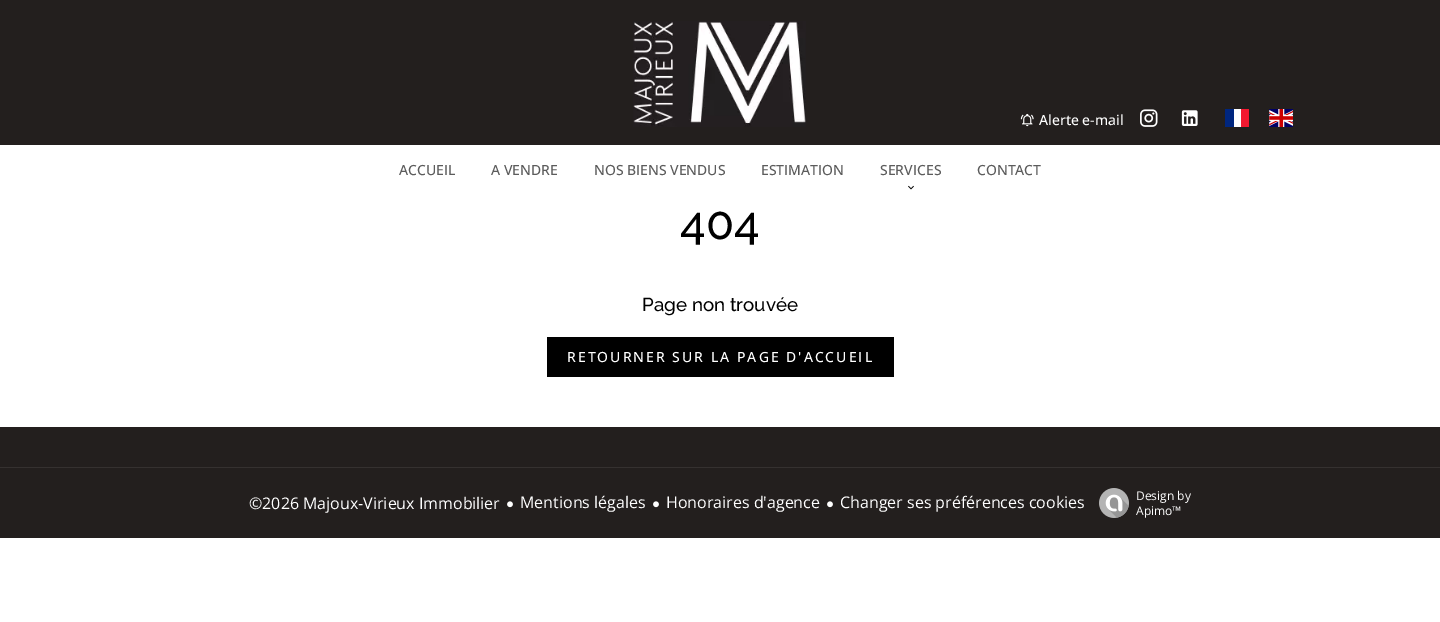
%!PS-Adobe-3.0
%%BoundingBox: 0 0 1440 622
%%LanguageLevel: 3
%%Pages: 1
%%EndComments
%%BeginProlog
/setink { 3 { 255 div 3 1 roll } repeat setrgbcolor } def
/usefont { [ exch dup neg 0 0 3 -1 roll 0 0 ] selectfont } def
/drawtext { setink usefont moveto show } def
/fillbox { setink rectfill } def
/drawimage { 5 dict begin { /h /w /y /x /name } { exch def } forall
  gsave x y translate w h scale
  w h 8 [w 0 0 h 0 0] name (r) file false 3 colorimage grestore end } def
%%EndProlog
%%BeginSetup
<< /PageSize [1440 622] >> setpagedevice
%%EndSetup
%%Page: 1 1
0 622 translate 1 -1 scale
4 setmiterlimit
0 0 1440 622 255 255 255 fillbox
0 0 1440 145 35 31 30 fillbox
(assets/img1.rgb) 633 21 173 106 drawimage
(assets/img2.rgb) 1020 113 14 14 drawimage
(Alerte e-mail) 1039 125 /OpenSans-Medium 14 255 255 255 drawtext
(assets/img3.rgb) 1140 109 18 18 drawimage
(assets/img4.rgb) 1181 110 17 16 drawimage
1234 109 7 18 255 255 255 fillbox
1225 109 9 18 0 38 127 fillbox
1241 109 8 18 243 24 48 fillbox
(assets/img5.rgb) 1269 109 24 18 drawimage
(ACCUEIL) 399 175 /OpenSans-Medium 14 92 92 92 drawtext
(A VENDRE) 491 175 /OpenSans-Medium 14 92 92 92 drawtext
(NOS BIENS VENDUS) 594 175 /OpenSans-Medium 14 92 92 92 drawtext
(ESTIMATION) 761 175 /OpenSans-Medium 14 92 92 92 drawtext
(SERVICES) 880 175 /OpenSans-Medium 14 92 92 92 drawtext
(assets/img6.rgb) 908 185 6 5 drawimage
(CONTACT) 977 175 /OpenSans-Medium 14 92 92 92 drawtext
(404) 680 239 /Raleway-Medium 46 0 0 0 drawtext
(Page non trouvée) 642 311 /Raleway-Medium 18.75 0 0 0 drawtext
547 337 347 40 0 0 0 fillbox
/OpenSans-Medium 14 usefont
255 255 255 setink
567 362 moveto 2 0 (RETOURNER SUR LA PAGE D'ACCUEIL) ashow
0 427 1440 111 35 31 30 fillbox
0 467 1440 1 53 49 48 fillbox
(©2026 Majoux-Virieux Immobilier) 249 509 /OpenSans-Regular 16 255 255 255 drawtext
(assets/img7.rgb) 507 501 6 7 drawimage
(Mentions légales) 520 508 /OpenSans-Regular 16 255 255 255 drawtext
(assets/img7.rgb) 653 501 6 7 drawimage
(Honoraires d'agence) 666 508 /OpenSans-Regular 16 255 255 255 drawtext
(assets/img7.rgb) 827 501 6 7 drawimage
(Changer ses préférences cookies) 840 508 /OpenSans-Regular 16 255 255 255 drawtext
(assets/img8.rgb) 1099 488 30 30 drawimage
(Design by) 1136 500 /OpenSans-Regular 12 255 255 255 drawtext
(Apimo™) 1136 515 /OpenSans-Regular 12 255 255 255 drawtext
showpage
%%EOF
